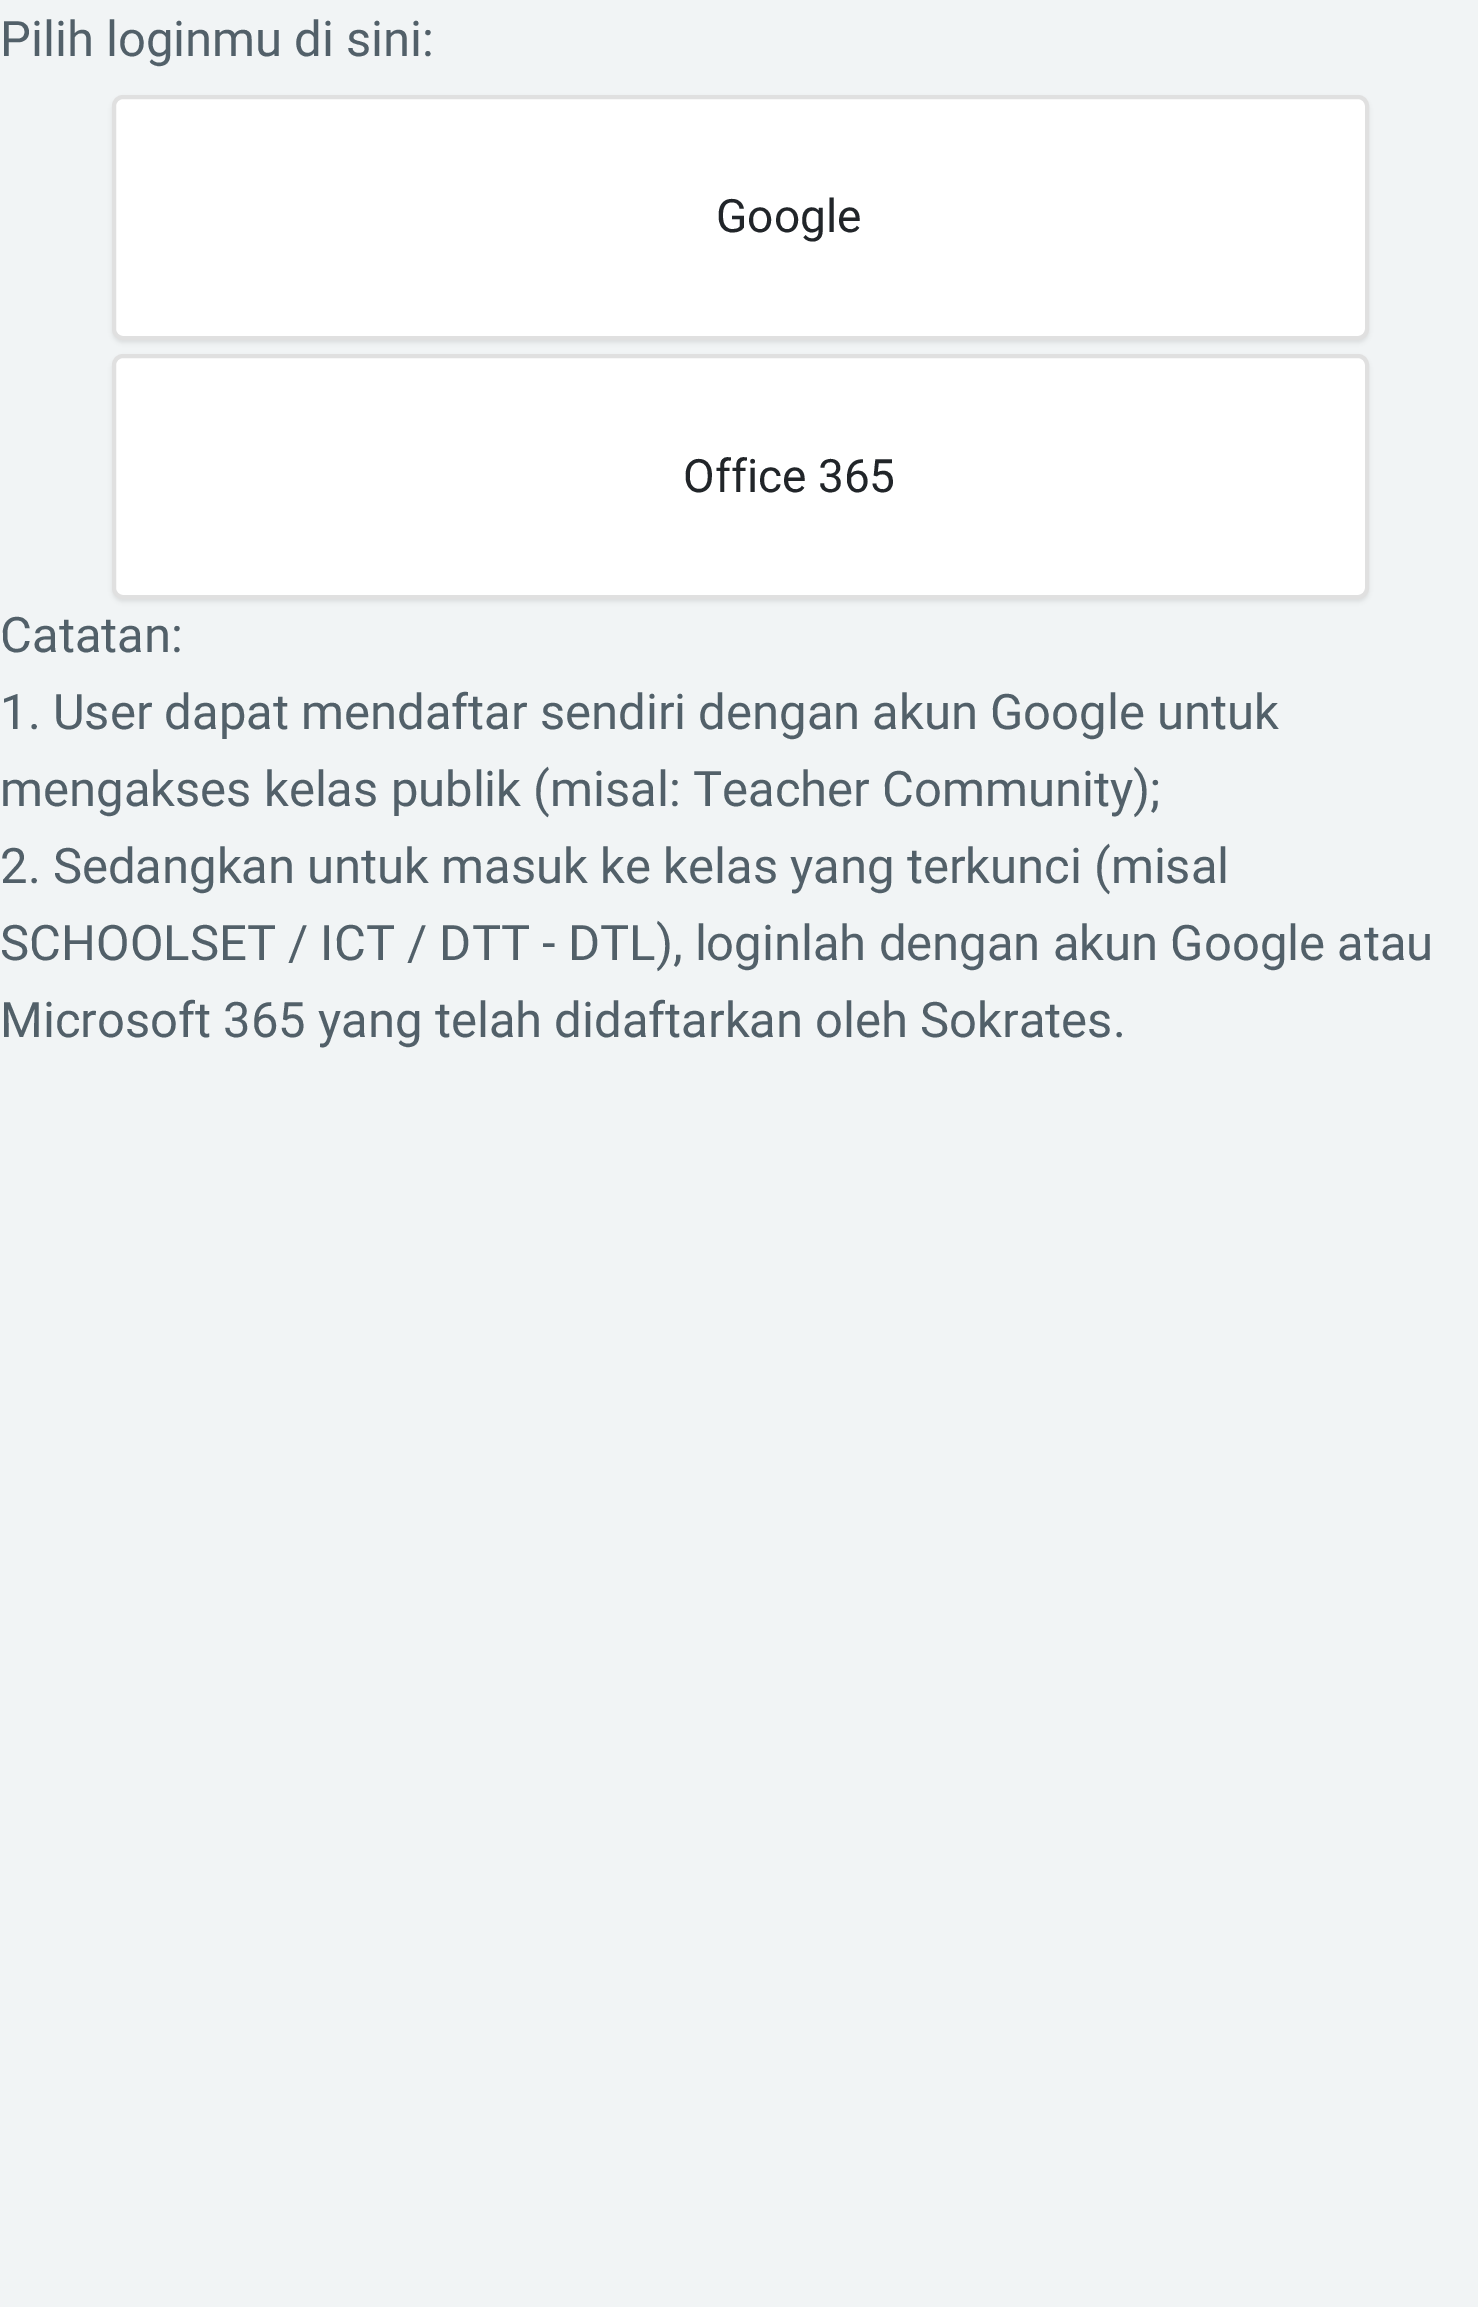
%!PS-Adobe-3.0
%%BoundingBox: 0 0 1478 2307
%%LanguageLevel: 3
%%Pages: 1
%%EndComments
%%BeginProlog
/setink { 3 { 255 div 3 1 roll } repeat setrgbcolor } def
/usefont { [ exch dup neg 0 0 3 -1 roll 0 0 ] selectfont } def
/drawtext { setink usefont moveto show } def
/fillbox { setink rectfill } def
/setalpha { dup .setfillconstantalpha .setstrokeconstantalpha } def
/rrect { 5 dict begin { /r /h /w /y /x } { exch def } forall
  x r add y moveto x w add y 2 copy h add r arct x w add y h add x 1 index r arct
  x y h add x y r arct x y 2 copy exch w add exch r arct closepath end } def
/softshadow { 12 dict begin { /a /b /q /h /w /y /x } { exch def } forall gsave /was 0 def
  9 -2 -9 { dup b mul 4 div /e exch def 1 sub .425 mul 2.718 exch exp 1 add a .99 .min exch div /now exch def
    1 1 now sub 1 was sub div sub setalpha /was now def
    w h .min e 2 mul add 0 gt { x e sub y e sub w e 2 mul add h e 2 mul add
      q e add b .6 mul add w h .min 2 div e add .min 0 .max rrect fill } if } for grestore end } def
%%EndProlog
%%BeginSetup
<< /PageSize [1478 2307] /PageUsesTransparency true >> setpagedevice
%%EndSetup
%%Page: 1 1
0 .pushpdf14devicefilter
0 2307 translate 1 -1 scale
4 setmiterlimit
0 0 1478 2307 241 244 245 fillbox
(Pilih loginmu di sini:) 0 56 /Roboto-Regular 49 82 96 105 drawtext
0 0 0 setink
112 98 1257 245 11 2 0.07 softshadow
255 255 255 setink
114 97 1253 241 9 rrect gsave fill grestore
224 224 224 setink
4 setlinewidth
stroke
(Google) 716 232 /Roboto-Regular 46 33 37 41 drawtext
0 0 0 setink
112 357 1257 245 11 2 0.07 softshadow
255 255 255 setink
114 356 1253 241 9 rrect gsave fill grestore
224 224 224 setink
stroke
(Office 365) 683 492 /Roboto-Regular 46 33 37 41 drawtext
(Catatan:) 0 652 /Roboto-Regular 49 82 96 105 drawtext
(1. User dapat mendaftar sendiri dengan akun Google untuk) 0 729 /Roboto-Regular 49 82 96 105 drawtext
(mengakses kelas publik \(misal: Teacher Community\);) 0 806 /Roboto-Regular 49 82 96 105 drawtext
(2. Sedangkan untuk masuk ke kelas yang terkunci \(misal) 0 883 /Roboto-Regular 49 82 96 105 drawtext
(SCHOOLSET / ICT / DTT - DTL\), loginlah dengan akun Google atau) 0 960 /Roboto-Regular 49 82 96 105 drawtext
(Microsoft 365 yang telah didaftarkan oleh Sokrates.) 0 1037 /Roboto-Regular 49 82 96 105 drawtext
.poppdf14devicefilter showpage
%%EOF
